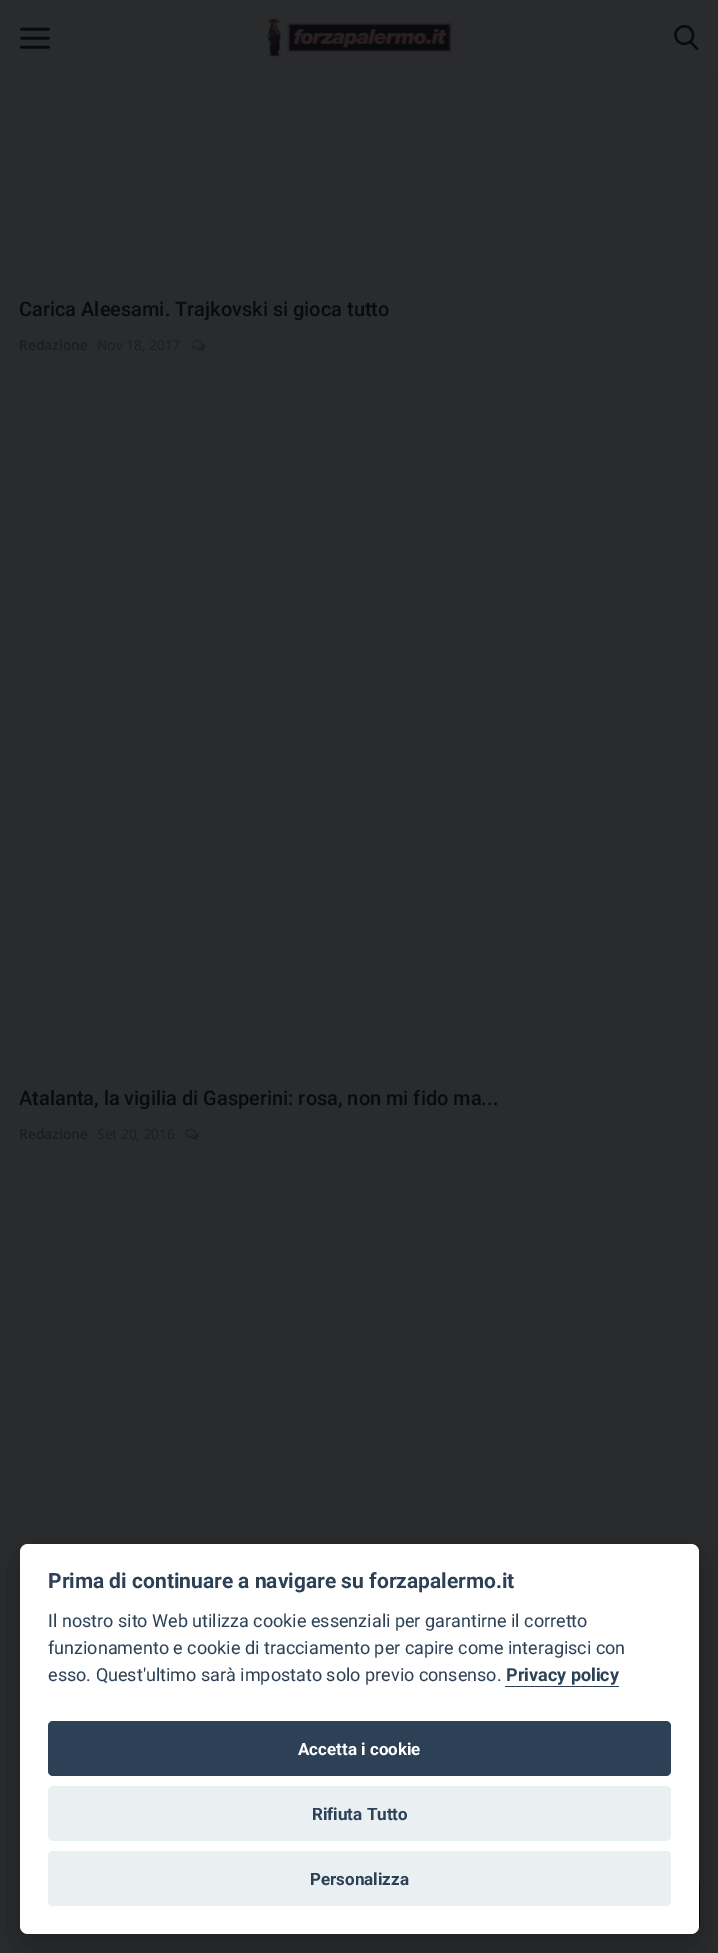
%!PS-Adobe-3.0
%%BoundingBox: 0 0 718 1953
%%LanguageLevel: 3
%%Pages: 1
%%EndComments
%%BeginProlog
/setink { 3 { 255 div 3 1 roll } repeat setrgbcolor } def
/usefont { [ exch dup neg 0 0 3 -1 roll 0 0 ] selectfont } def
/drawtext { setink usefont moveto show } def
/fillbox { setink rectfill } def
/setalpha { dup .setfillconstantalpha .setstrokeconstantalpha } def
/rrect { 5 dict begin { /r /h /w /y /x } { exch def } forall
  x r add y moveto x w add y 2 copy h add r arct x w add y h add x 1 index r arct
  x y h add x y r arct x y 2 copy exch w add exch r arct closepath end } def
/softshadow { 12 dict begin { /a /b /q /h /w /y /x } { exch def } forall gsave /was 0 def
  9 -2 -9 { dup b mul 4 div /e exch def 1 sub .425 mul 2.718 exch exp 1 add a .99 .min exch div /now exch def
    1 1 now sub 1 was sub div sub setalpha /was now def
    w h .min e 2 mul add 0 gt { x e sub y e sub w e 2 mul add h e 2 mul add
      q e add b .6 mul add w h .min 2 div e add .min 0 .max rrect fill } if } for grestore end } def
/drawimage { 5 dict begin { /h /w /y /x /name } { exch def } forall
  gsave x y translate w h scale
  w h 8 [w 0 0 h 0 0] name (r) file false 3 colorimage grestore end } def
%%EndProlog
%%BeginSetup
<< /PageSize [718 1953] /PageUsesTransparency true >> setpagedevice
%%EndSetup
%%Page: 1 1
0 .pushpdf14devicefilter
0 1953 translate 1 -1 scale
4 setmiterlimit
0 0 718 1953 42 43 45 fillbox
0 75 718 1 38 40 41 fillbox
(assets/img1.rgb) 20 27 30 22 drawimage
(assets/img2.rgb) 266 18 187 39 drawimage
(assets/img3.rgb) 674 25 25 25 drawimage
(Carica Aleesami. Trajkovski si gioca tutto) 19 316 /Roboto-Medium 20 9 10 12 drawtext
(Redazione) 19 350 /OpenSans-SemiBold 13.75 26 28 30 drawtext
(Nov 18, 2017) 97 350 /OpenSans-Regular 13.75 26 28 30 drawtext
(assets/img4.rgb) 191 340 14 11 drawimage
(Atalanta, la vigilia di Gasperini: rosa, non mi fido ma...) 19 1105 /Roboto-Medium 20 9 10 12 drawtext
(Redazione) 19 1139 /OpenSans-SemiBold 13.75 26 28 30 drawtext
(Set 20, 2016) 97 1139 /OpenSans-Regular 13.75 26 28 30 drawtext
(assets/img5.rgb) 185 1129 14 11 drawimage
9 10 12 setink
650 1879 50 50 4 rrect fill
2 2 3 setink
20 1556 679 390 8 19 0.28 softshadow
255 255 255 setink
20 1544 679 390 8 rrect fill
(Prima di continuare a navigare su forzapalermo.it) 48 1588 /Roboto-Bold 21 45 65 86 drawtext
(Il nostro sito Web utilizza cookie essenziali per garantirne il corretto) 48 1627 /Roboto-Regular 18 45 65 86 drawtext
(funzionamento e cookie di tracciamento per capire come interagisci con) 48 1654 /Roboto-Regular 18 45 65 86 drawtext
(esso. Quest'ultimo sarà impostato solo previo consenso.) 48 1681 /Roboto-Regular 18 45 65 86 drawtext
(Privacy policy) 506 1681 /Roboto-Bold 18 45 65 86 drawtext
505 1686 114 1 45 65 86 fillbox
48 1721 623 55 5 rrect fill
(Accetta i cookie) 298 1755 /Roboto-Bold 17 255 255 255 drawtext
234 239 242 setink
48 1786 623 55 5 rrect fill
(Rifiuta Tutto) 312 1820 /Roboto-Bold 17 45 65 86 drawtext
234 239 242 setink
48 1851 623 55 5 rrect fill
(Personalizza) 310 1885 /Roboto-Bold 17 45 65 86 drawtext
.poppdf14devicefilter showpage
%%EOF
